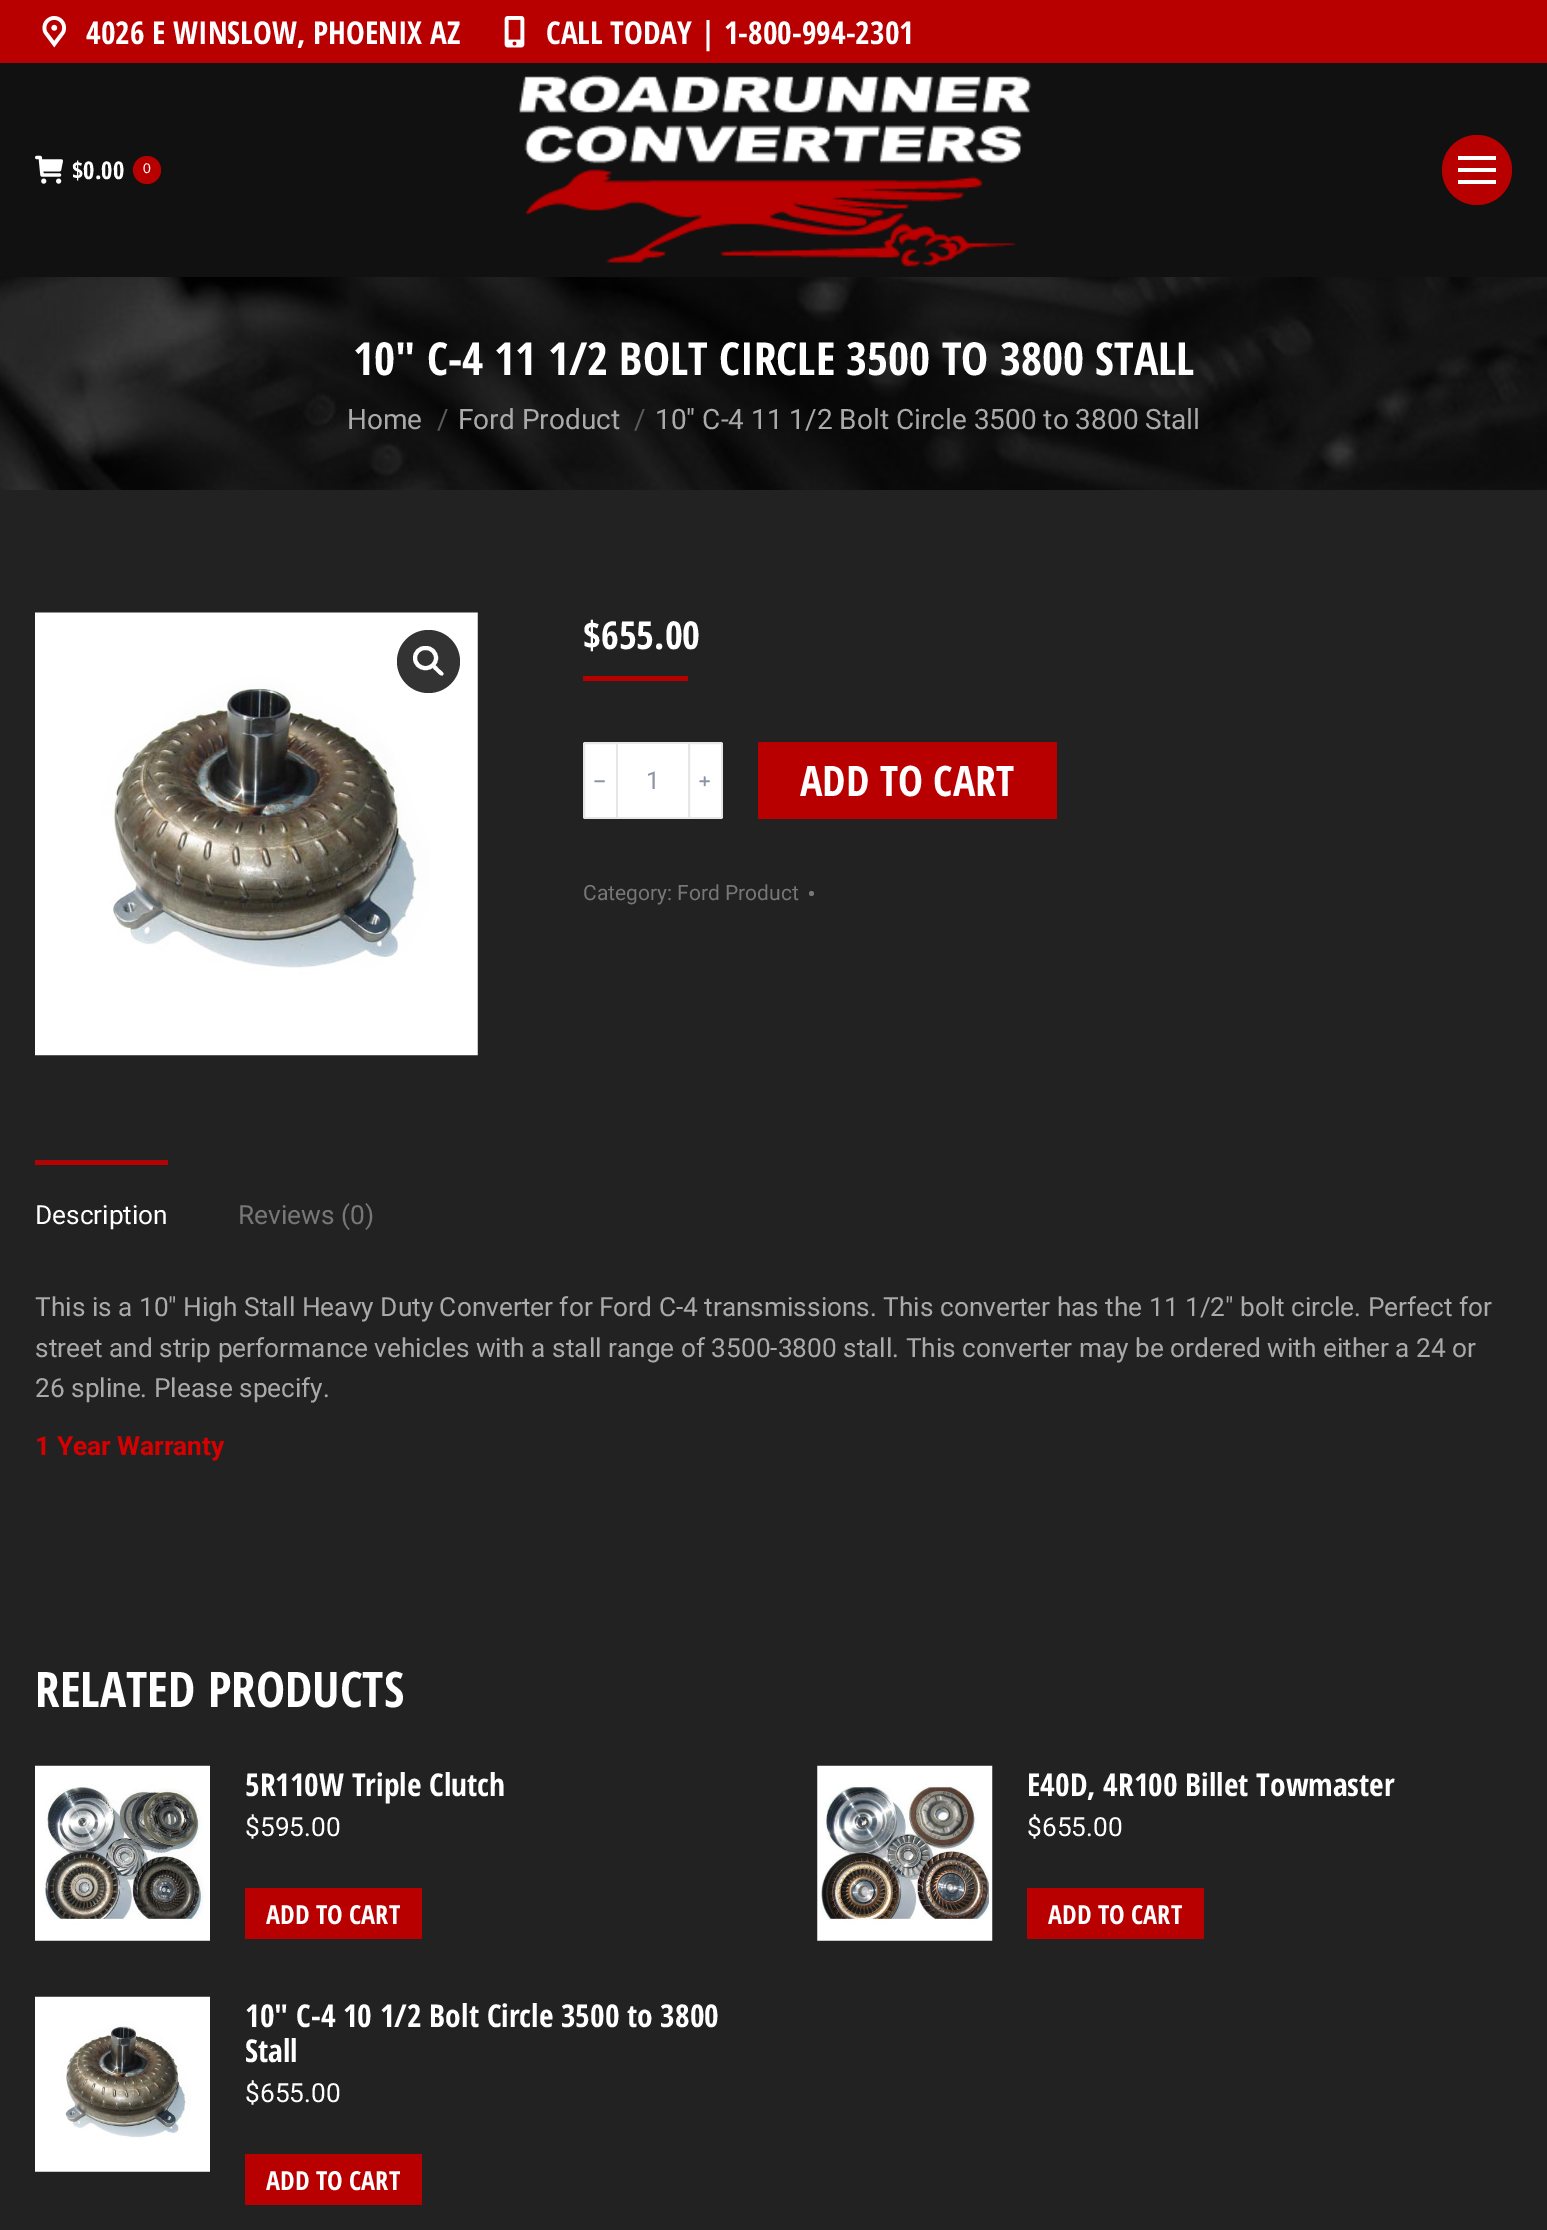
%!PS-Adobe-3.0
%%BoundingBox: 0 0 1547 2230
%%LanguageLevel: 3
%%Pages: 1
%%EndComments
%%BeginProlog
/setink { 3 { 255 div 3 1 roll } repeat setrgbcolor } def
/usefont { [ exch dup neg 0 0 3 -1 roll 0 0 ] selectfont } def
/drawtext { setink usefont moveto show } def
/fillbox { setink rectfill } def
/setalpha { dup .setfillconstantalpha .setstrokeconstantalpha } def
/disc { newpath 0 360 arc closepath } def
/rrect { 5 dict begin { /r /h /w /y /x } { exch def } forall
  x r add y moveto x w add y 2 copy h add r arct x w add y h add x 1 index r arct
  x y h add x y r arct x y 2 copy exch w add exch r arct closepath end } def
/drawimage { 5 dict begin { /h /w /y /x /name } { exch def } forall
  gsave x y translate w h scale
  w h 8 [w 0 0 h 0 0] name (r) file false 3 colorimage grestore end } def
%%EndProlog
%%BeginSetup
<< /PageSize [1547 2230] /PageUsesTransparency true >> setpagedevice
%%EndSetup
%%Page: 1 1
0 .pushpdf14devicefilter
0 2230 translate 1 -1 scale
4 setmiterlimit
0 0 1547 2230 34 34 34 fillbox
0 63 1547 214 17 17 17 fillbox
0 0 1547 63 185 0 1 fillbox
(assets/img1.rgb) 42 16 25 32 drawimage
(4026 E WINSLOW, PHOENIX AZ) 86 44 /OpenSansCondensed-Bold 31.5 255 255 255 drawtext
(assets/img2.rgb) 504 16 21 32 drawimage
(CALL TODAY | 1-800-994-2301) 546 44 /OpenSansCondensed-Bold 31.5 255 255 255 drawtext
(assets/img3.rgb) 35 155 28 29 drawimage
($0.00) 72 179 /OpenSansCondensed-Bold 24.5 255 255 255 drawtext
185 0 1 setink
147 170 14 disc fill
(0) 143 173 /LiberationSans-Regular 14 255 255 255 drawtext
(assets/img4.rgb) 519 75 513 192 drawimage
185 0 1 setink
1477 170 35 disc fill
1458 156 38 4 255 255 255 fillbox
1458 168 38 4 255 255 255 fillbox
1458 180 38 4 255 255 255 fillbox
(assets/img5.rgb) 0 277 1547 213 drawimage
(10″ C-4 11 1/2 BOLT CIRCLE 3500 TO 3800 STALL) 353 375 /OpenSansCondensed-Bold 45.5 255 255 255 drawtext
(Home) 347 429 /Roboto-Regular 28 170 170 170 drawtext
(/) 437 429 /Roboto-Regular 28 90 90 90 drawtext
(Ford Product) 458 429 /Roboto-Regular 28 170 170 170 drawtext
(/) 634 429 /Roboto-Regular 28 90 90 90 drawtext
(10″ C-4 11 1/2 Bolt Circle 3500 to 3800 Stall) 655 429 /Roboto-Regular 28 170 170 170 drawtext
(assets/img6.rgb) 35 612 443 444 drawimage
51 51 51 setink
428.5 661.5 31.5 disc fill
255 255 255 setink
4 setlinewidth
415 648 21 20 10 rrect stroke
433 665.5 moveto 435 663.5 438 668 439 669 curveto 440 670 445 673 443 675 curveto 441 677 437.5 672.5 436.5 671.5 curveto 435.5 670.5 431 667.5 433 665.5 curveto closepath fill
($655.00) 583 649 /OpenSansCondensed-Bold 38.5 255 255 255 drawtext
583 676 105 5 185 0 1 fillbox
255 255 255 setink
585 742 moveto 618 742 lineto 618 819 lineto 585 819 lineto 584 819 583 818 583 817 curveto 583 744 lineto 583 743 584 742 585 742 curveto closepath fill
0.12 setalpha
51 51 51 setink
2 setlinewidth
585 743 moveto 617 743 lineto 617 818 lineto 585 818 lineto 584.5 818 584 817.5 584 817 curveto 584 744 lineto 584 743.5 584.5 743 585 743 curveto closepath stroke
1 setalpha
(﹣) 588 789 /WenQuanYiZenHei-Bold 24.5 140 149 162 drawtext
618 744 70 73 255 255 255 fillbox
618 742 70 2 231 231 231 fillbox
618 817 70 2 231 231 231 fillbox
(1) 646 789 /Roboto-Regular 24.5 140 149 162 drawtext
255 255 255 setink
688 742 moveto 721 742 lineto 722 742 723 743 723 744 curveto 723 817 lineto 723 818 722 819 721 819 curveto 688 819 lineto closepath fill
0.12 setalpha
51 51 51 setink
689 743 moveto 721 743 lineto 721.5 743 722 743.5 722 744 curveto 722 817 lineto 722 817.5 721.5 818 721 818 curveto 689 818 lineto closepath stroke
1 setalpha
(﹢) 693 789 /WenQuanYiZenHei-Bold 24.5 140 149 162 drawtext
758 742 299 77 185 0 1 fillbox
(ADD TO CART) 800 796 /OpenSansCondensed-Bold 42 255 255 255 drawtext
(Category: Ford Product) 583 900 /Roboto-Regular 21 119 119 119 drawtext
811.5 893.5 2.5 disc fill
35 1162 133 3 185 0 1 fillbox
35 1160 133 2 169 6 7 fillbox
(Description) 35 1224 /Roboto-Regular 26.25 255 255 255 drawtext
(Reviews \(0\)) 238 1224 /Roboto-Regular 26.25 119 119 119 drawtext
(This is a 10″ High Stall Heavy Duty Converter for Ford C-4 transmissions. This converter has the 11 1/2″ bolt circle. Perfect for) 35 1316 /Roboto-Regular 26.25 170 170 170 drawtext
(street and strip performance vehicles with a stall range of 3500-3800 stall. This converter may be ordered with either a 24 or) 35 1357 /Roboto-Regular 26.25 170 170 170 drawtext
(26 spline. Please specify.) 35 1397 /Roboto-Regular 26.25 170 170 170 drawtext
(1 Year Warranty) 35 1455 /Roboto-Bold 26.25 214 0 0 drawtext
(RELATED PRODUCTS) 35 1707 /OpenSansCondensed-Bold 49 255 255 255 drawtext
(assets/img7.rgb) 35 1765 175 176 drawimage
(5R110W Triple Clutch) 245 1796 /OpenSansCondensed-Bold 31.5 255 255 255 drawtext
($595.00) 245 1836 /Roboto-Regular 26.25 255 255 255 drawtext
245 1888 177 51 185 0 1 fillbox
(ADD TO CART) 266 1924 /OpenSansCondensed-Bold 26.25 255 255 255 drawtext
(assets/img8.rgb) 817 1765 176 176 drawimage
(E40D, 4R100 Billet Towmaster) 1027 1796 /OpenSansCondensed-Bold 31.5 255 255 255 drawtext
($655.00) 1027 1836 /Roboto-Regular 26.25 255 255 255 drawtext
1027 1888 177 51 185 0 1 fillbox
(ADD TO CART) 1048 1924 /OpenSansCondensed-Bold 26.25 255 255 255 drawtext
(assets/img9.rgb) 35 1996 175 176 drawimage
(10" C-4 10 1/2 Bolt Circle 3500 to 3800) 245 2027 /OpenSansCondensed-Bold 31.5 255 255 255 drawtext
(Stall) 245 2062 /OpenSansCondensed-Bold 31.5 255 255 255 drawtext
($655.00) 245 2102 /Roboto-Regular 26.25 255 255 255 drawtext
245 2154 177 51 185 0 1 fillbox
(ADD TO CART) 266 2190 /OpenSansCondensed-Bold 26.25 255 255 255 drawtext
.poppdf14devicefilter showpage
%%EOF
